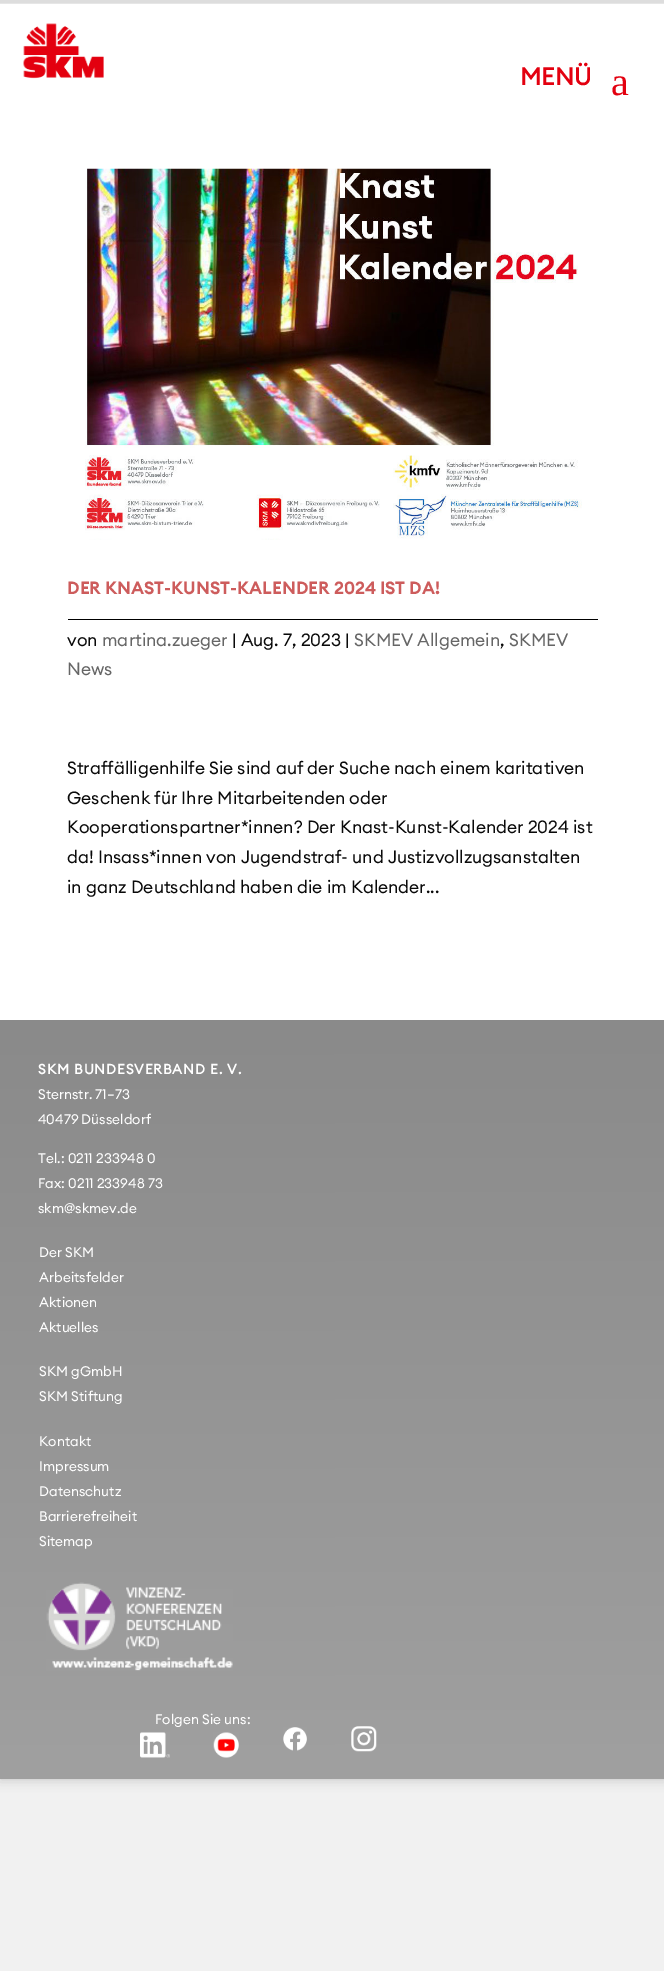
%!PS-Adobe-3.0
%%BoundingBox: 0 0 664 1971
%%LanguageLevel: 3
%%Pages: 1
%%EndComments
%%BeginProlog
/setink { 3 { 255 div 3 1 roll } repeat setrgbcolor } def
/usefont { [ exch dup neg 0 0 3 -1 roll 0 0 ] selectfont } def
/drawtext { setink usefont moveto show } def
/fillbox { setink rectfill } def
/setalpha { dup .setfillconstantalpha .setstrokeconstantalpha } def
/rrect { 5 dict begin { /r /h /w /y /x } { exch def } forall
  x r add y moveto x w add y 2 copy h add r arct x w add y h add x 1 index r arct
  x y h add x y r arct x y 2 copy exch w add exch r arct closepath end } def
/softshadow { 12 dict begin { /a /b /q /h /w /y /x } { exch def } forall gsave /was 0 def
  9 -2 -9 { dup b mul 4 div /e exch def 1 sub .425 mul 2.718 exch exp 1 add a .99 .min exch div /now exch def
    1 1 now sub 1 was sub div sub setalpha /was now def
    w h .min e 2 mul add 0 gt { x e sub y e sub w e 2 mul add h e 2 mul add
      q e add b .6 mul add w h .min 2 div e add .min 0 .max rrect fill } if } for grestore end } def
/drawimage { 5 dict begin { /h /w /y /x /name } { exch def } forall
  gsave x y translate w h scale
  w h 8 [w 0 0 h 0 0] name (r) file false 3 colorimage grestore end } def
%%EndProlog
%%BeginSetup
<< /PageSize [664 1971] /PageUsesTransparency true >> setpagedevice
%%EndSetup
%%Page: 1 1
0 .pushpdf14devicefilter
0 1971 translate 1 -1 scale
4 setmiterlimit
0 0 664 1971 241 241 241 fillbox
0 0 0 setink
0 0 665 1779 0 6 0.2 softshadow
0 4 664 1016 255 255 255 fillbox
0 3 664 1 230 230 230 fillbox
0 0 664 3 221 221 221 fillbox
(assets/img1.rgb) 23 23 81 56 drawimage
(MENÜ) 520 85 /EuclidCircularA-Bold 24 227 0 15 drawtext
(a) 611 95 /LiberationSerif-Regular 40 227 0 15 drawtext
(assets/img2.rgb) 85 168 497 372 drawimage
(DER KNAST-KUNST-KALENDER 2024 IST DA!) 67 594 /EuclidCircularA-SemiBold 17.5 205 92 92 drawtext
68 619 530 1 0 0 0 fillbox
(von) 67 646 /EuclidCircularA-Regular 17.5 10 10 10 drawtext
(martina.zueger) 102 646 /EuclidCircularA-Regular 17.5 102 102 102 drawtext
(| Aug. 7, 2023 |) 232 646 /EuclidCircularA-Regular 17.5 10 10 10 drawtext
(SKMEV Allgemein) 354 646 /EuclidCircularA-Regular 17.5 102 102 102 drawtext
(,) 500 646 /EuclidCircularA-Regular 17.5 10 10 10 drawtext
(SKMEV) 509 646 /EuclidCircularA-Regular 17.5 102 102 102 drawtext
(News) 67 675 /EuclidCircularA-Regular 17.5 102 102 102 drawtext
(Straffälligenhilfe Sie sind auf der Suche nach einem karitativen) 67 774 /EuclidCircularA-Regular 17.5 10 10 10 drawtext
(Geschenk für Ihre Mitarbeitenden oder) 67 804 /EuclidCircularA-Regular 17.5 10 10 10 drawtext
(Kooperationspartner*innen? Der Knast-Kunst-Kalender 2024 ist) 67 833 /EuclidCircularA-Regular 17.5 10 10 10 drawtext
(da! Insass*innen von Jugendstraf- und Justizvollzugsanstalten) 67 863 /EuclidCircularA-Regular 17.5 10 10 10 drawtext
(in ganz Deutschland haben die im Kalender...) 67 893 /EuclidCircularA-Regular 17.5 10 10 10 drawtext
gsave 0 1020 moveto 664 1020 lineto 664 1779 lineto 0 1779 lineto closepath clip newpath
<< /ShadingType 2 /ColorSpace /DeviceRGB /Coords [332 1020 333 1779] /Extend [true true] /Function << /FunctionType 2 /Domain [0 1] /C0 [0.541 0.541 0.541] /C1 [0.627 0.627 0.627] /N 1 >> >> shfill grestore
/EuclidCircularA-Bold 13.75 usefont
255 255 255 setink
38 1074 moveto 0.9 0 (SKM BUNDESVERBAND E. V.) ashow
(Sternstr. 71–73) 38 1099 /EuclidCircularA-Regular 13.75 255 255 255 drawtext
(40479 Düsseldorf) 38 1124 /EuclidCircularA-Regular 13.75 255 255 255 drawtext
(Tel.: 0211 233948 0) 38 1163 /EuclidCircularA-Regular 13.75 255 255 255 drawtext
(Fax: 0211 233948 73) 38 1188 /EuclidCircularA-Regular 13.75 255 255 255 drawtext
(skm@skmev.de) 38 1213 /EuclidCircularA-Regular 13.75 255 255 255 drawtext
(Der SKM) 39 1257 /EuclidCircularA-Regular 13.75 255 255 255 drawtext
(Arbeitsfelder) 39 1282 /EuclidCircularA-Regular 13.75 255 255 255 drawtext
(Aktionen) 39 1307 /EuclidCircularA-Regular 13.75 255 255 255 drawtext
(Aktuelles) 39 1332 /EuclidCircularA-Regular 13.75 255 255 255 drawtext
(SKM gGmbH) 39 1376 /EuclidCircularA-Regular 13.75 255 255 255 drawtext
(SKM Stiftung) 39 1401 /EuclidCircularA-Regular 13.75 255 255 255 drawtext
(Kontakt) 39 1446 /EuclidCircularA-Regular 13.75 255 255 255 drawtext
(Impressum) 39 1471 /EuclidCircularA-Regular 13.75 255 255 255 drawtext
(Datenschutz) 39 1496 /EuclidCircularA-Regular 13.75 255 255 255 drawtext
(Barrierefreiheit) 39 1521 /EuclidCircularA-Regular 13.75 255 255 255 drawtext
(Sitemap) 39 1546 /EuclidCircularA-Regular 13.75 255 255 255 drawtext
(assets/img3.rgb) 46 1582 187 89 drawimage
(Folgen Sie uns:) 155 1724 /EuclidCircularA-Regular 13.75 255 255 255 drawtext
(assets/img4.rgb) 140 1732 30 26 drawimage
(assets/img5.rgb) 213 1732 26 26 drawimage
(assets/img6.rgb) 283 1727 24 24 drawimage
(assets/img7.rgb) 351 1726 26 26 drawimage
.poppdf14devicefilter showpage
%%EOF
